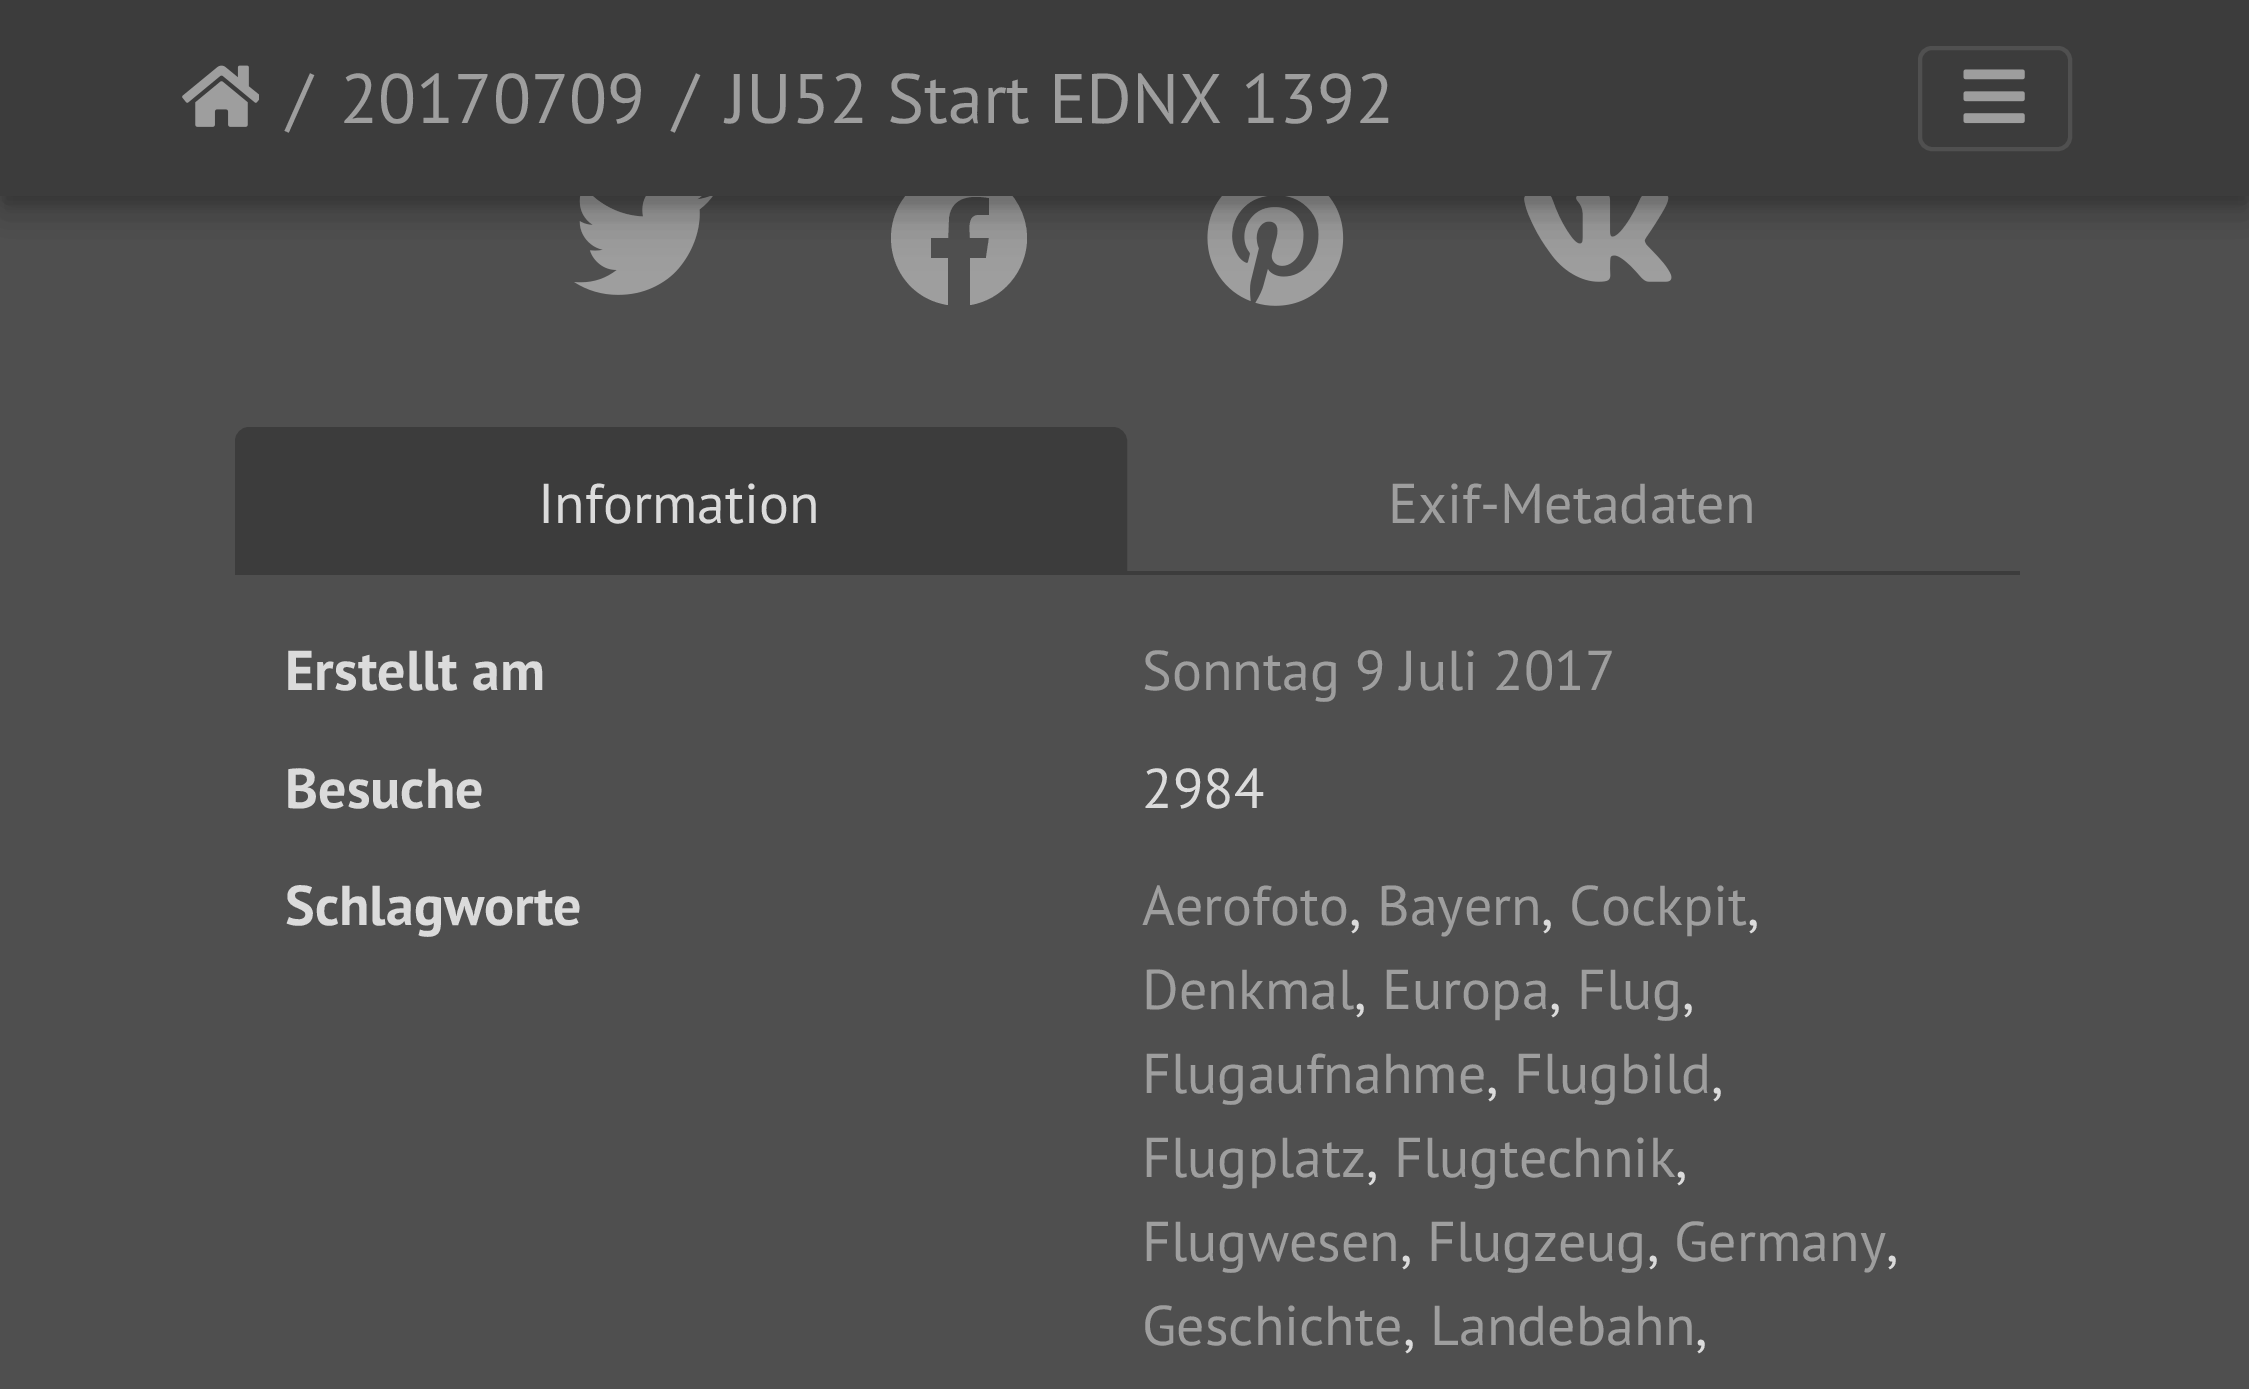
%!PS-Adobe-3.0
%%BoundingBox: 0 0 2249 1389
%%LanguageLevel: 3
%%Pages: 1
%%EndComments
%%BeginProlog
/setink { 3 { 255 div 3 1 roll } repeat setrgbcolor } def
/usefont { [ exch dup neg 0 0 3 -1 roll 0 0 ] selectfont } def
/drawtext { setink usefont moveto show } def
/fillbox { setink rectfill } def
/setalpha { dup .setfillconstantalpha .setstrokeconstantalpha } def
/rrect { 5 dict begin { /r /h /w /y /x } { exch def } forall
  x r add y moveto x w add y 2 copy h add r arct x w add y h add x 1 index r arct
  x y h add x y r arct x y 2 copy exch w add exch r arct closepath end } def
/softshadow { 12 dict begin { /a /b /q /h /w /y /x } { exch def } forall gsave /was 0 def
  9 -2 -9 { dup b mul 4 div /e exch def 1 sub .425 mul 2.718 exch exp 1 add a .99 .min exch div /now exch def
    1 1 now sub 1 was sub div sub setalpha /was now def
    w h .min e 2 mul add 0 gt { x e sub y e sub w e 2 mul add h e 2 mul add
      q e add b .6 mul add w h .min 2 div e add .min 0 .max rrect fill } if } for grestore end } def
/drawimage { 5 dict begin { /h /w /y /x /name } { exch def } forall
  gsave x y translate w h scale
  w h 8 [w 0 0 h 0 0] name (r) file false 3 colorimage grestore end } def
%%EndProlog
%%BeginSetup
<< /PageSize [2249 1389] /PageUsesTransparency true >> setpagedevice
%%EndSetup
%%Page: 1 1
0 .pushpdf14devicefilter
0 1389 translate 1 -1 scale
4 setmiterlimit
0 0 2249 1389 79 79 79 fillbox
(assets/img3.rgb) 574 196 139 99 drawimage
158 158 158 setink
1027 238 moveto 1027 271 1002 300 970 305 curveto 970 258 lineto 986 258 lineto 989 238 lineto 970 238 lineto 970 230 967 216 978 215 curveto 989 215 lineto 989 198 lineto 972 195 952 196 949 217 curveto 948 238 lineto 931 238 lineto 931 258 lineto 948 258 lineto 948 305 lineto 890 296 871 223 916 185 curveto 926 177 939 172 952 170 curveto 968 169 984 172 997 181 curveto 1015 194 1027 215 1027 238 curveto closepath fill
(assets/img4.rgb) 1207 196 137 110 drawimage
(assets/img5.rgb) 1524 196 148 86 drawimage
0 0 0 setink
4 14 2243 189 0 9 0.2 softshadow
0 4 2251 196 0 31.5 0.12 softshadow
0 21 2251 196 0 17.5 0.14 softshadow
0 0 2249 196 60 60 60 fillbox
(assets/img1.rgb) 182 65 77 62 drawimage
(/) 287 123 /PTSans-Regular 70 158 158 158 drawtext
(20170709) 340 123 /PTSans-Regular 70 158 158 158 drawtext
(/) 673 123 /PTSans-Regular 70 158 158 158 drawtext
(JU52 Start EDNX 1392) 726 123 /PTSans-Regular 70 158 158 158 drawtext
80 80 80 setink
4 setlinewidth
1920 48 150 101 12 rrect stroke
(assets/img2.rgb) 1963 69 62 55 drawimage
235 571 1785 4 60 60 60 fillbox
249 429 moveto 1113 429 lineto 1119.5 429 1125 434.5 1125 441 curveto 1125 572 lineto 237 572 lineto 237 441 lineto 237 434.5 242.5 429 249 429 curveto closepath gsave fill grestore
stroke
(Information) 538 523 /PTSans-Regular 56 219 219 219 drawtext
(Exif-Metadaten) 1388 523 /PTSans-Regular 56 158 158 158 drawtext
(Erstellt am) 285 690 /PTSans-Bold 56 219 219 219 drawtext
(Sonntag 9 Juli 2017) 1142 690 /PTSans-Regular 56 158 158 158 drawtext
(Besuche) 285 808 /PTSans-Bold 56 219 219 219 drawtext
(2984) 1142 808 /PTSans-Regular 56 219 219 219 drawtext
(Schlagworte) 285 925 /PTSans-Bold 56 219 219 219 drawtext
(Aerofoto) 1142 925 /PTSans-Regular 56 158 158 158 drawtext
(,) 1349 925 /PTSans-Regular 56 219 219 219 drawtext
(Bayern) 1377 925 /PTSans-Regular 56 158 158 158 drawtext
(,) 1541 925 /PTSans-Regular 56 219 219 219 drawtext
(Cockpit) 1569 925 /PTSans-Regular 56 158 158 158 drawtext
(,) 1747 925 /PTSans-Regular 56 219 219 219 drawtext
(Denkmal) 1142 1009 /PTSans-Regular 56 158 158 158 drawtext
(,) 1354 1009 /PTSans-Regular 56 219 219 219 drawtext
(Europa) 1382 1009 /PTSans-Regular 56 158 158 158 drawtext
(,) 1549 1009 /PTSans-Regular 56 219 219 219 drawtext
(Flug) 1577 1009 /PTSans-Regular 56 158 158 158 drawtext
(,) 1682 1009 /PTSans-Regular 56 219 219 219 drawtext
(Flugaufnahme) 1142 1093 /PTSans-Regular 56 158 158 158 drawtext
(,) 1486 1093 /PTSans-Regular 56 219 219 219 drawtext
(Flugbild) 1514 1093 /PTSans-Regular 56 158 158 158 drawtext
(,) 1711 1093 /PTSans-Regular 56 219 219 219 drawtext
(Flugplatz) 1142 1177 /PTSans-Regular 56 158 158 158 drawtext
(,) 1366 1177 /PTSans-Regular 56 219 219 219 drawtext
(Flugtechnik) 1394 1177 /PTSans-Regular 56 158 158 158 drawtext
(,) 1675 1177 /PTSans-Regular 56 219 219 219 drawtext
(Flugwesen) 1142 1261 /PTSans-Regular 56 158 158 158 drawtext
(,) 1400 1261 /PTSans-Regular 56 219 219 219 drawtext
(Flugzeug) 1427 1261 /PTSans-Regular 56 158 158 158 drawtext
(,) 1647 1261 /PTSans-Regular 56 219 219 219 drawtext
(Germany) 1674 1261 /PTSans-Regular 56 158 158 158 drawtext
(,) 1886 1261 /PTSans-Regular 56 219 219 219 drawtext
(Geschichte) 1142 1345 /PTSans-Regular 56 158 158 158 drawtext
(,) 1403 1345 /PTSans-Regular 56 219 219 219 drawtext
(Landebahn) 1430 1345 /PTSans-Regular 56 158 158 158 drawtext
(,) 1695 1345 /PTSans-Regular 56 219 219 219 drawtext
.poppdf14devicefilter showpage
%%EOF
